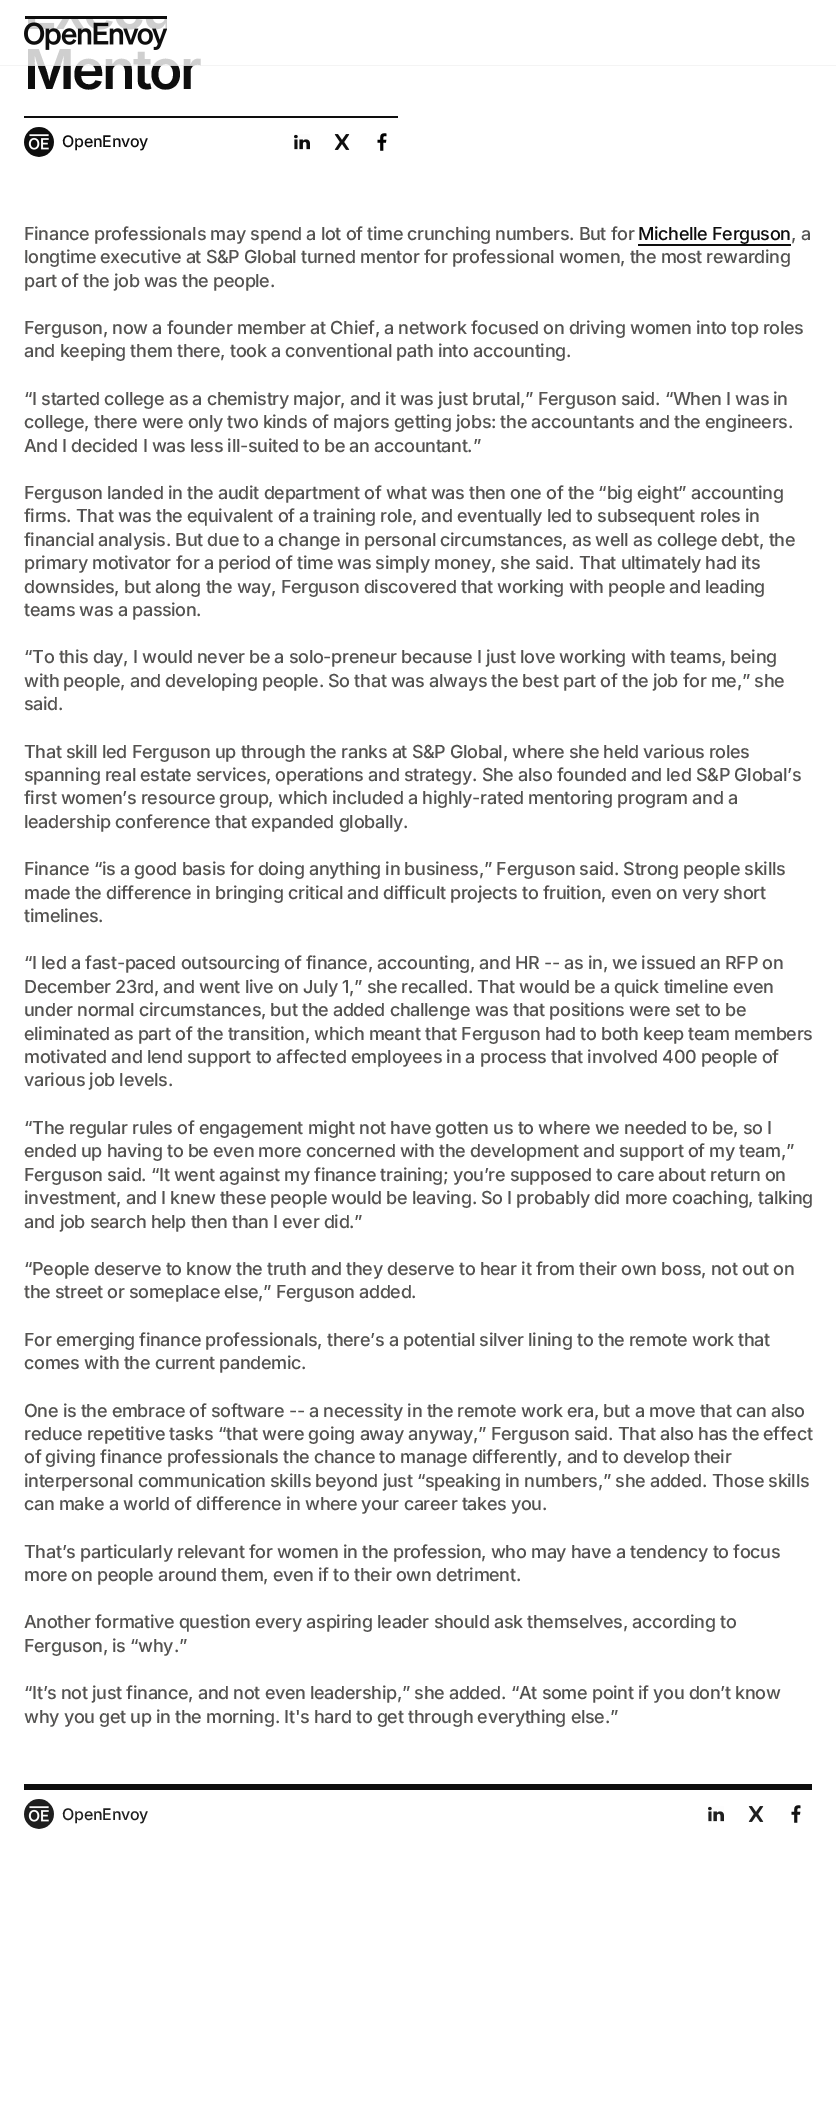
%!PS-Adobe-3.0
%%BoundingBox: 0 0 836 2112
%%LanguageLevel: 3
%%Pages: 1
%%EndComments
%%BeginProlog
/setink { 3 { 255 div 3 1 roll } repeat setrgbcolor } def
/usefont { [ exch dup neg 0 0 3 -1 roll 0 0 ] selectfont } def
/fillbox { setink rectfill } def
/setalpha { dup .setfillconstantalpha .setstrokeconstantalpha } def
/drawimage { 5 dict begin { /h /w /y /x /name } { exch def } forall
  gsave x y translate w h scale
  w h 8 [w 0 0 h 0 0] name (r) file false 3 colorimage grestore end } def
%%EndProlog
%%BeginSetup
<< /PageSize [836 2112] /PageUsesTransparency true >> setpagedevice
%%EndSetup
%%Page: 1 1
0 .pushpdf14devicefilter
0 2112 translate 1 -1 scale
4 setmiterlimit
0 0 836 2112 255 255 255 fillbox
/Inter-SemiBold 55 usefont
14 14 14 setink
24 89 moveto -2.75 0 (Mentor) ashow
0.8 setalpha
28 49 173 17 255 255 255 fillbox
1 setalpha
(assets/img1.rgb) 24 16 143 34 drawimage
0.05 setalpha
0 65 836 1 31 31 31 fillbox
1 setalpha
24 116 374 2 14 14 14 fillbox
(assets/img2.rgb) 24 127 30 30 drawimage
/Inter-Medium 16 usefont
62 147 moveto -0.25 0 (OpenEnvoy) ashow
(assets/img3.rgb) 294 134 16 16 drawimage
(assets/img4.rgb) 334 134 16 16 drawimage
(assets/img5.rgb) 377 133 10 18 drawimage
/Inter-Medium 18 usefont
84 83 81 setink
24 240 moveto -0.35 0 (Finance professionals may spend a lot of time crunching numbers. But for) ashow
14 14 14 setink
638 240 moveto -0.35 0 (Michelle Ferguson) ashow
638 244 153 2 14 14 14 fillbox
84 83 81 setink
791 240 moveto -0.35 0 (, a) ashow
24 263 moveto -0.35 0 (longtime executive at S&P Global turned mentor for professional women, the most rewarding) ashow
24 287 moveto -0.35 0 (part of the job was the people.) ashow
24 334 moveto -0.35 0 (Ferguson, now a founder member at Chief, a network focused on driving women into top roles) ashow
24 357 moveto -0.35 0 (and keeping them there, took a conventional path into accounting.) ashow
24 405 moveto -0.35 0 (“I started college as a chemistry major, and it was just brutal,” Ferguson said. “When I was in) ashow
24 428 moveto -0.35 0 (college, there were only two kinds of majors getting jobs: the accountants and the engineers.) ashow
24 452 moveto -0.35 0 (And I decided I was less ill-suited to be an accountant.”) ashow
24 499 moveto -0.35 0 (Ferguson landed in the audit department of what was then one of the “big eight” accounting) ashow
24 522 moveto -0.35 0 (firms. That was the equivalent of a training role, and eventually led to subsequent roles in) ashow
24 546 moveto -0.35 0 (financial analysis. But due to a change in personal circumstances, as well as college debt, the) ashow
24 569 moveto -0.35 0 (primary motivator for a period of time was simply money, she said. That ultimately had its) ashow
24 593 moveto -0.35 0 (downsides, but along the way, Ferguson discovered that working with people and leading) ashow
24 616 moveto -0.35 0 (teams was a passion.) ashow
24 663 moveto -0.35 0 (“To this day, I would never be a solo-preneur because I just love working with teams, being) ashow
24 687 moveto -0.35 0 (with people, and developing people. So that was always the best part of the job for me,” she) ashow
24 710 moveto -0.35 0 (said.) ashow
24 758 moveto -0.35 0 (That skill led Ferguson up through the ranks at S&P Global, where she held various roles) ashow
24 781 moveto -0.35 0 (spanning real estate services, operations and strategy. She also founded and led S&P Global’s) ashow
24 804 moveto -0.35 0 (first women’s resource group, which included a highly-rated mentoring program and a) ashow
24 828 moveto -0.35 0 (leadership conference that expanded globally.) ashow
24 875 moveto -0.35 0 (Finance “is a good basis for doing anything in business,” Ferguson said. Strong people skills) ashow
24 899 moveto -0.35 0 (made the difference in bringing critical and difficult projects to fruition, even on very short) ashow
24 922 moveto -0.35 0 (timelines.) ashow
24 969 moveto -0.35 0 (“I led a fast-paced outsourcing of finance, accounting, and HR -- as in, we issued an RFP on) ashow
24 993 moveto -0.35 0 (December 23rd, and went live on July 1,” she recalled. That would be a quick timeline even) ashow
24 1016 moveto -0.35 0 (under normal circumstances, but the added challenge was that positions were set to be) ashow
24 1040 moveto -0.35 0 (eliminated as part of the transition, which meant that Ferguson had to both keep team members) ashow
24 1063 moveto -0.35 0 (motivated and lend support to affected employees in a process that involved 400 people of) ashow
24 1086 moveto -0.35 0 (various job levels.) ashow
24 1134 moveto -0.35 0 (“The regular rules of engagement might not have gotten us to where we needed to be, so I) ashow
24 1157 moveto -0.35 0 (ended up having to be even more concerned with the development and support of my team,”) ashow
24 1181 moveto -0.35 0 (Ferguson said. “It went against my finance training; you’re supposed to care about return on) ashow
24 1204 moveto -0.35 0 (investment, and I knew these people would be leaving. So I probably did more coaching, talking) ashow
24 1228 moveto -0.35 0 (and job search help then than I ever did.”) ashow
24 1275 moveto -0.35 0 (“People deserve to know the truth and they deserve to hear it from their own boss, not out on) ashow
24 1298 moveto -0.35 0 (the street or someplace else,” Ferguson added.) ashow
24 1346 moveto -0.35 0 (For emerging finance professionals, there’s a potential silver lining to the remote work that) ashow
24 1369 moveto -0.35 0 (comes with the current pandemic.) ashow
24 1417 moveto -0.35 0 (One is the embrace of software -- a necessity in the remote work era, but a move that can also) ashow
24 1440 moveto -0.35 0 (reduce repetitive tasks “that were going away anyway,” Ferguson said. That also has the effect) ashow
24 1463 moveto -0.35 0 (of giving finance professionals the chance to manage differently, and to develop their) ashow
24 1487 moveto -0.35 0 (interpersonal communication skills beyond just “speaking in numbers,” she added. Those skills) ashow
24 1510 moveto -0.35 0 (can make a world of difference in where your career takes you.) ashow
24 1558 moveto -0.35 0 (That’s particularly relevant for women in the profession, who may have a tendency to focus) ashow
24 1581 moveto -0.35 0 (more on people around them, even if to their own detriment.) ashow
24 1628 moveto -0.35 0 (Another formative question every aspiring leader should ask themselves, according to) ashow
24 1652 moveto -0.35 0 (Ferguson, is “why.”) ashow
24 1699 moveto -0.35 0 (“It’s not just finance, and not even leadership,” she added. “At some point if you don’t know) ashow
24 1723 moveto -0.35 0 (why you get up in the morning. It's hard to get through everything else.”) ashow
24 1784 788 6 14 14 14 fillbox
(assets/img6.rgb) 24 1799 30 30 drawimage
/Inter-Medium 16 usefont
31 31 31 setink
62 1820 moveto -0.25 0 (OpenEnvoy) ashow
(assets/img7.rgb) 708 1806 16 16 drawimage
(assets/img8.rgb) 748 1806 16 16 drawimage
(assets/img9.rgb) 791 1805 10 18 drawimage
.poppdf14devicefilter showpage
%%EOF
